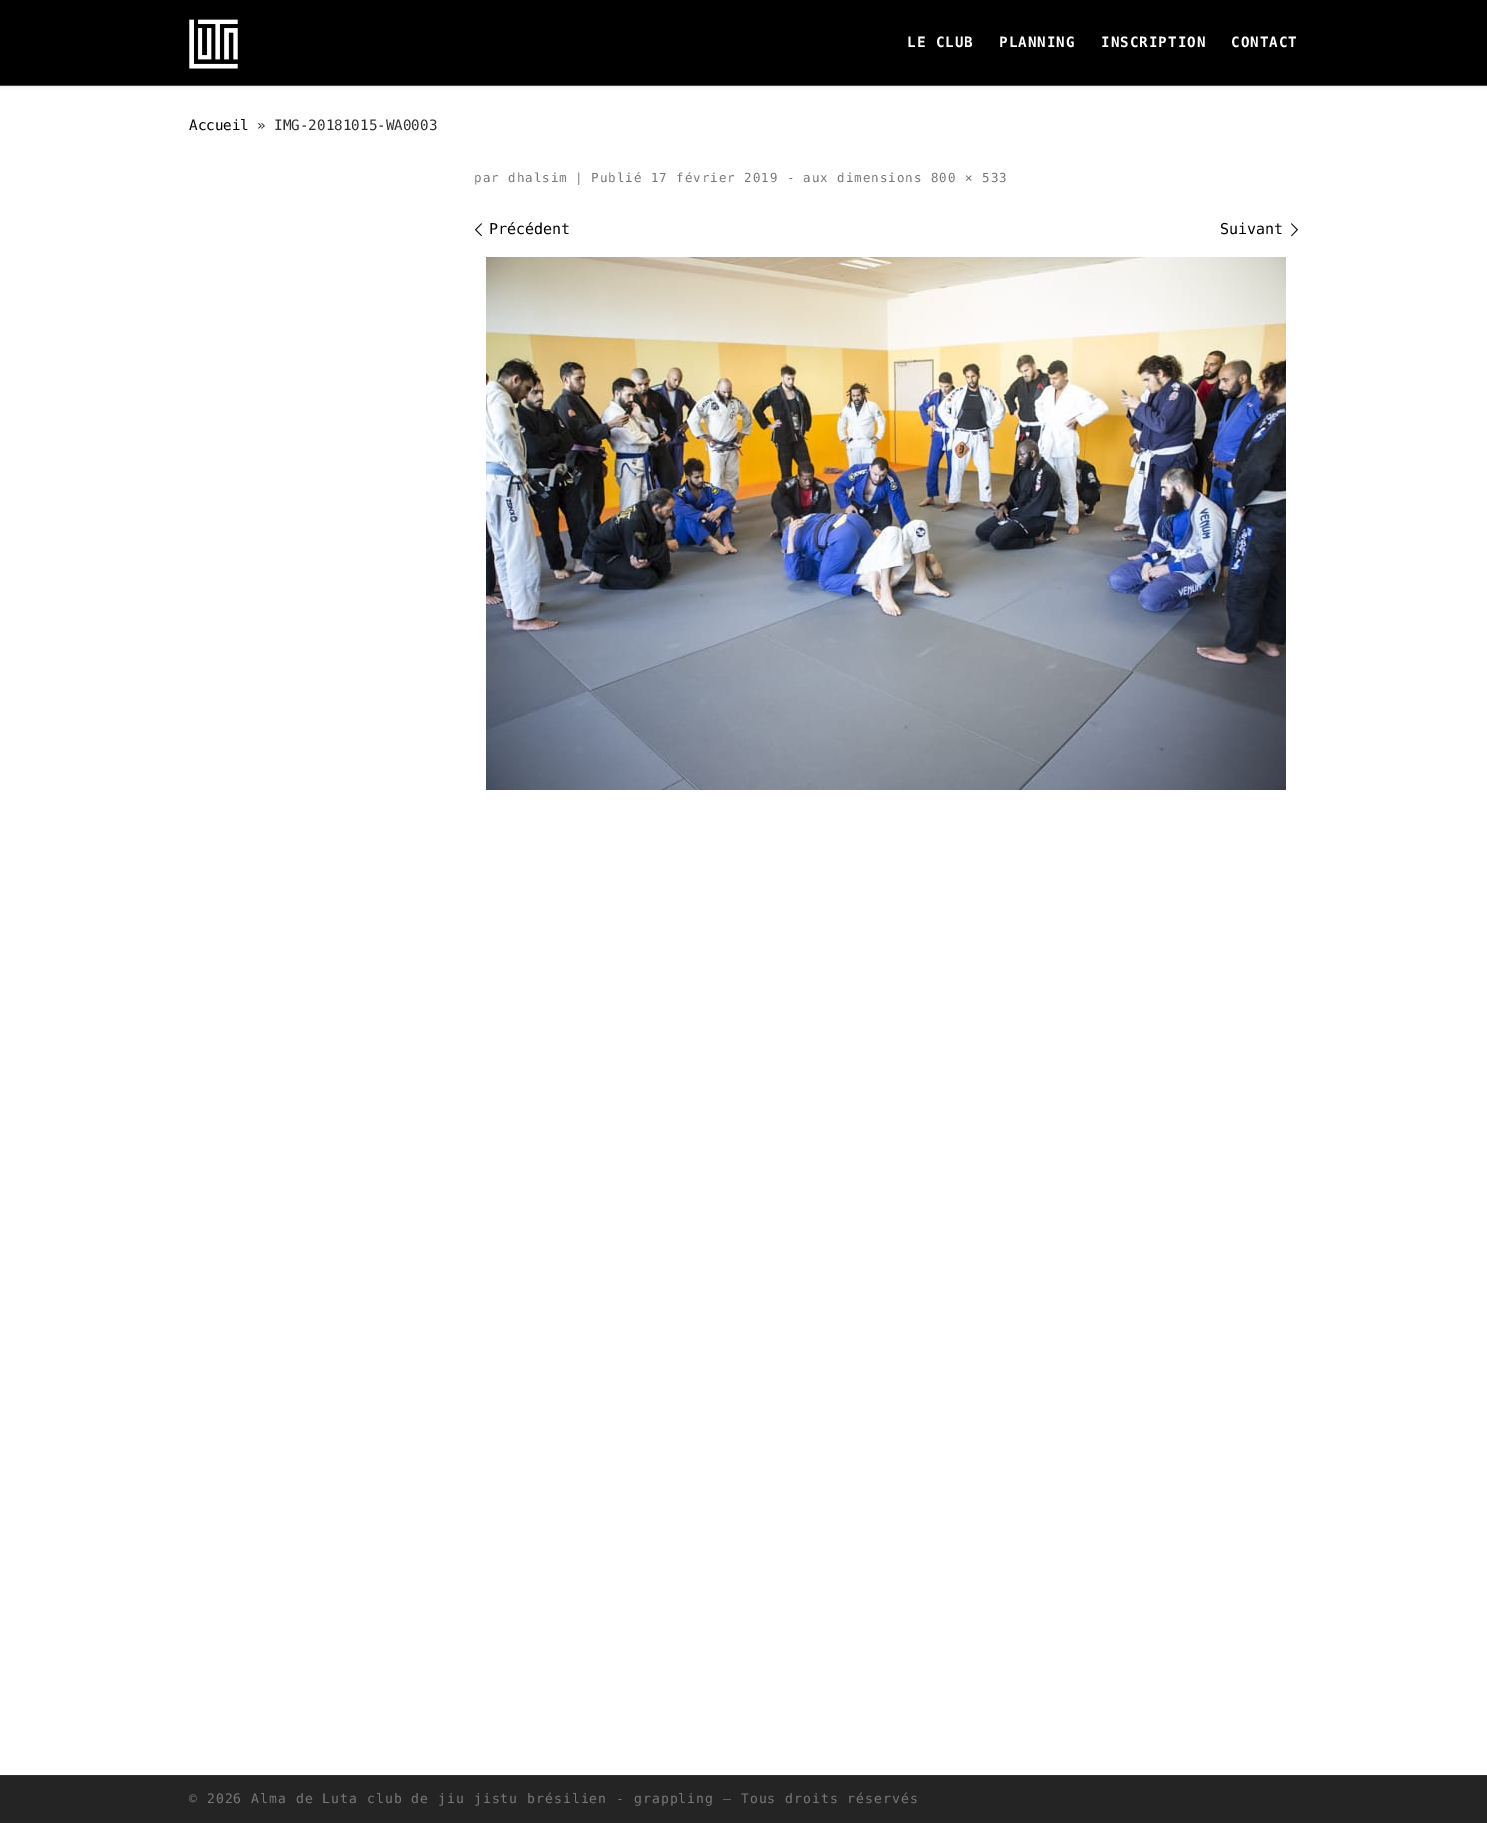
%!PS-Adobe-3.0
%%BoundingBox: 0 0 1487 1823
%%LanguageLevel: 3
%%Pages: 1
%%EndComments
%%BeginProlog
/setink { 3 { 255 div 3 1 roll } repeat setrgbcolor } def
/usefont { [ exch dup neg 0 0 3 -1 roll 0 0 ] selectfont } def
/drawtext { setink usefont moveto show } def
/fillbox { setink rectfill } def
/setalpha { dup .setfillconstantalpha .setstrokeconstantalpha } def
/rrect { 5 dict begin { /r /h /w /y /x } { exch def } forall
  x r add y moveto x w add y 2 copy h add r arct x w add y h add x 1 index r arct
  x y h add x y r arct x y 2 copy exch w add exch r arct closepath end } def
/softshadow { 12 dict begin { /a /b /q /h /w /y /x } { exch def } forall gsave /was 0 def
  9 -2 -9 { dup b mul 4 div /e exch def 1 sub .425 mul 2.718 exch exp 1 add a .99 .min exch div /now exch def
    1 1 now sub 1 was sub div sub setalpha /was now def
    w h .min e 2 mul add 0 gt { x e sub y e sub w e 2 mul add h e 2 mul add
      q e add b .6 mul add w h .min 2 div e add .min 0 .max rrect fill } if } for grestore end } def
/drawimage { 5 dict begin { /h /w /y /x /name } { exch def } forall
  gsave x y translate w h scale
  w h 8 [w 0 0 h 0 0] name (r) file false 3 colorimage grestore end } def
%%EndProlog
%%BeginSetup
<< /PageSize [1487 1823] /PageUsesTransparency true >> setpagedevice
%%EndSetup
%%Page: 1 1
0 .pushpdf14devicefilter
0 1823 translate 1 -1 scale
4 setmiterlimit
0 0 1487 1823 255 255 255 fillbox
102 102 102 setink
0 2 1487 86 0 1 0.08 softshadow
0 85 1487 1 68 68 68 fillbox
0 0 1487 85 0 0 0 fillbox
(assets/img1.rgb) 189 19 49 50 drawimage
/DejaVuSansMono-Bold 14.25 usefont
255 255 255 setink
907 47 moveto 1 0 (LE CLUB) ashow
999 47 moveto 1 0 (PLANNING) ashow
1101 47 moveto 1 0 (INSCRIPTION) ashow
1231 47 moveto 1 0 (CONTACT) ashow
(Accueil) 189 130 /DejaVuSansMono-Regular 14.25 2 2 2 drawtext
(» IMG-20181015-WA0003) 257 130 /DejaVuSansMono-Regular 14.25 51 51 51 drawtext
/DejaVuSansMono-Regular 12.5 usefont
119 119 119 setink
474 182 moveto 1 0 (par dhalsim) ashow
575 182 moveto 1 0 (|) ashow
591 182 moveto 1 0 (Publié 17 février 2019) ashow
787 182 moveto 1 0 (-) ashow
803 182 moveto 1 0 (aux dimensions 800 × 533) ashow
(assets/img2.rgb) 475 223 7 14 drawimage
(Précédent) 489 234 /DejaVuSansMono-Regular 15 2 2 2 drawtext
(Suivant) 1220 234 /DejaVuSansMono-Regular 15 2 2 2 drawtext
(assets/img3.rgb) 1291 223 7 14 drawimage
(assets/img4.rgb) 486 257 800 533 drawimage
0 1775 1487 1 49 49 49 fillbox
0 1776 1487 47 36 36 36 fillbox
/DejaVuSansMono-Regular 13.12 usefont
119 119 119 setink
189 1803 moveto 1 0 (© 2026 Alma de Luta club de jiu jistu brésilien - grappling – Tous droits réservés) ashow
.poppdf14devicefilter showpage
%%EOF
